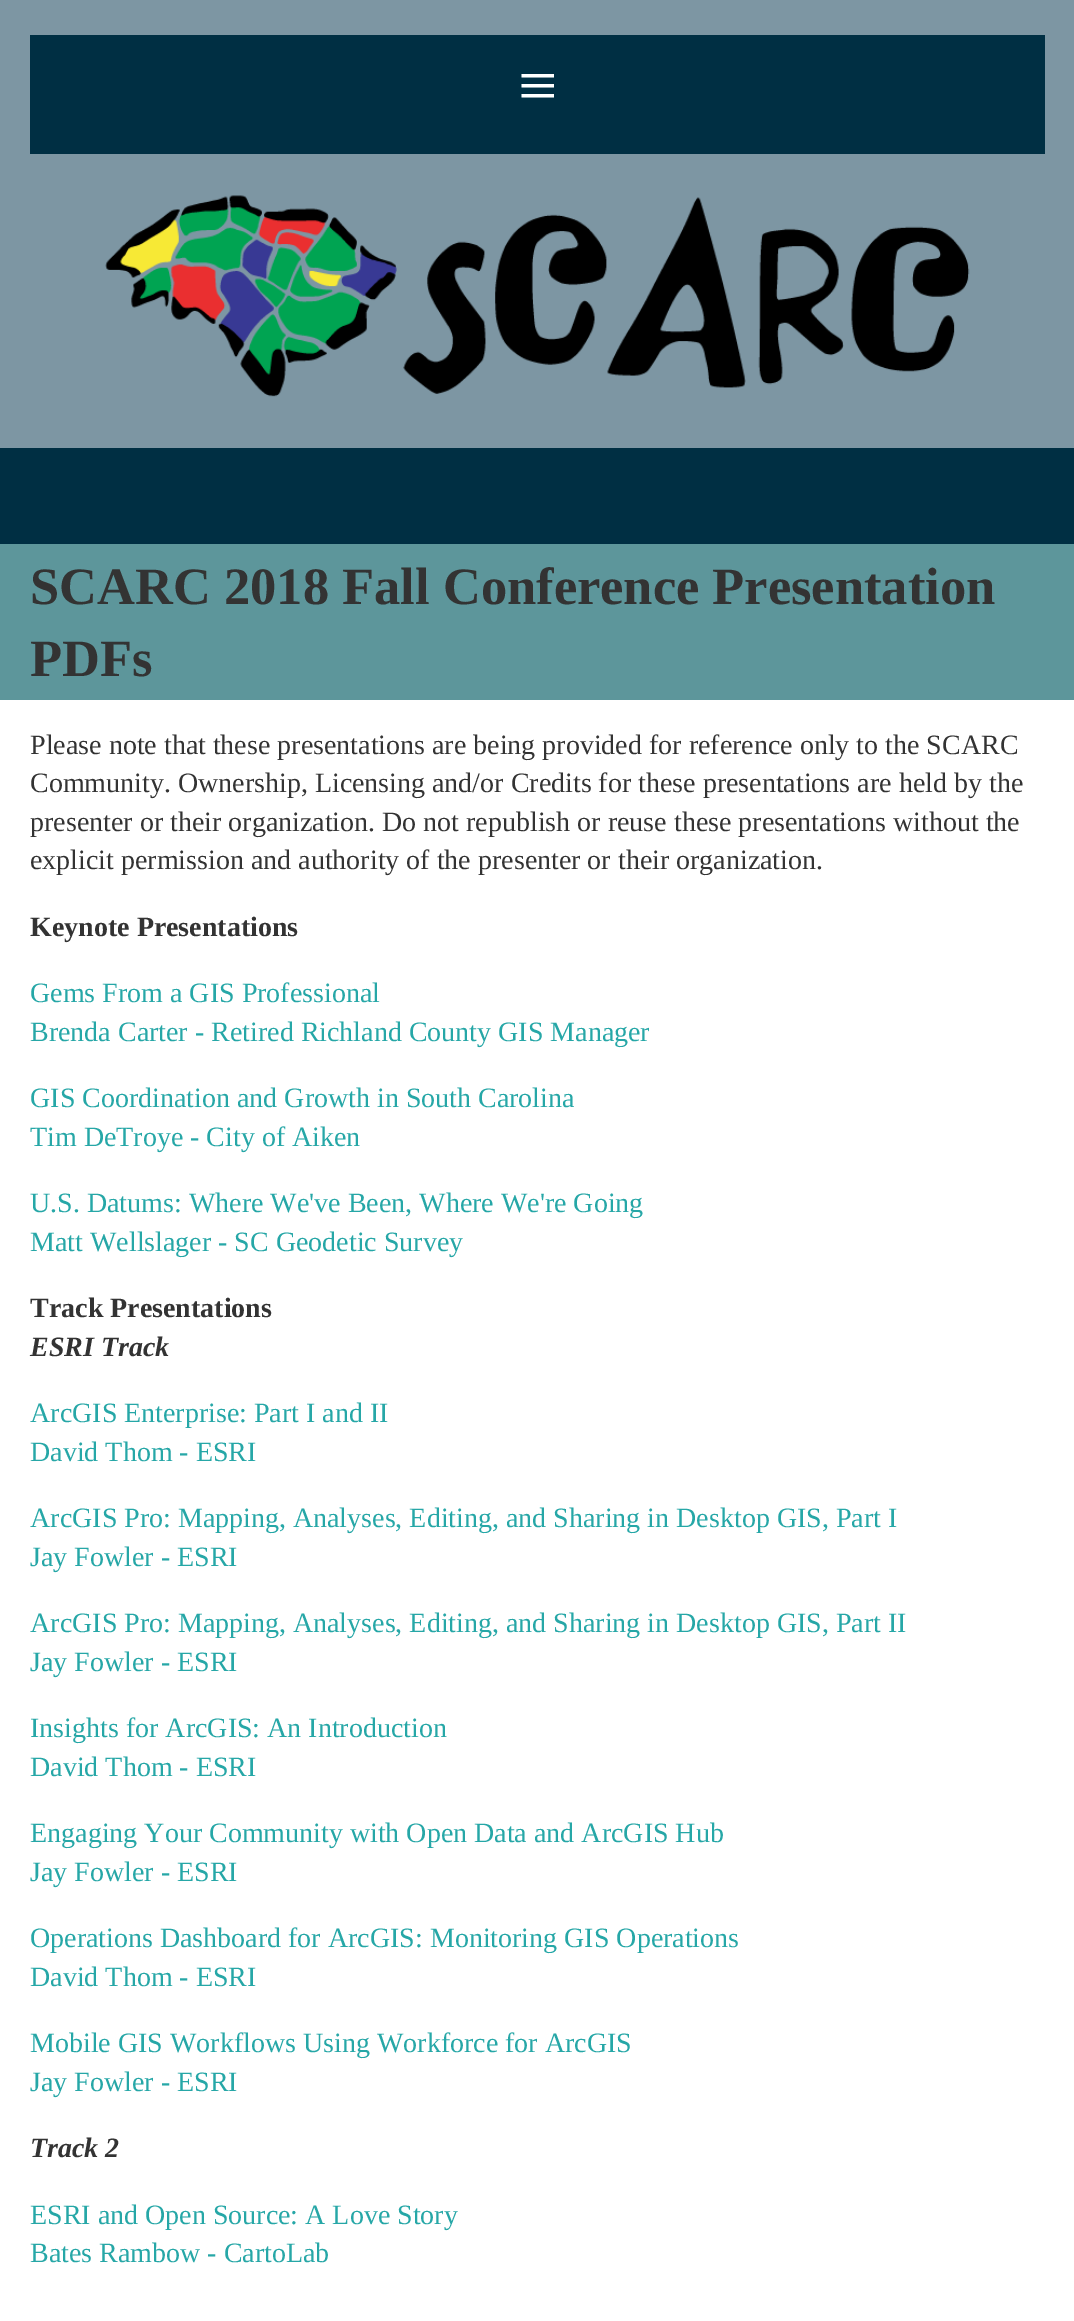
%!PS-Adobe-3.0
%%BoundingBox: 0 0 1074 2321
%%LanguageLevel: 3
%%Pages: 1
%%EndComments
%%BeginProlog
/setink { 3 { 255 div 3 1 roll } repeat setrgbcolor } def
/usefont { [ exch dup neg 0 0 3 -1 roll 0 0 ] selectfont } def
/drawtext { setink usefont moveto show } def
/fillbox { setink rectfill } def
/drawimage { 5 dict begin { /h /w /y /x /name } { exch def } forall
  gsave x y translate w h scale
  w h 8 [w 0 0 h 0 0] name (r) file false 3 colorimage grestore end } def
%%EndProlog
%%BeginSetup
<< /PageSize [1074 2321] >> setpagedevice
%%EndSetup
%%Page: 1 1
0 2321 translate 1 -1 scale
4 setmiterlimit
0 0 1074 2321 255 255 255 fillbox
0 0 1074 448 125 150 163 fillbox
30 35 1015 119 0 47 67 fillbox
(≡) 518 109 /LiberationSerif-Regular 70 255 255 255 drawtext
(assets/img1.rgb) 105 195 865 202 drawimage
0 448 1074 96 0 47 67 fillbox
0 544 1074 156 93 150 155 fillbox
(SCARC 2018 Fall Conference Presentation) 30 604 /LiberationSerif-Bold 52.5 51 51 51 drawtext
(PDFs) 30 676 /LiberationSerif-Bold 52.5 51 51 51 drawtext
(Please note that these presentations are being provided for reference only to the SCARC) 30 754 /LiberationSerif-Regular 28 51 51 51 drawtext
(Community. Ownership, Licensing and/or Credits for these presentations are held by the) 30 792 /LiberationSerif-Regular 28 51 51 51 drawtext
(presenter or their organization. Do not republish or reuse these presentations without the) 30 831 /LiberationSerif-Regular 28 51 51 51 drawtext
(explicit permission and authority of the presenter or their organization.) 30 869 /LiberationSerif-Regular 28 51 51 51 drawtext
(Keynote Presentations) 30 936 /LiberationSerif-Bold 28 51 51 51 drawtext
(Gems From a GIS Professional) 30 1002 /LiberationSerif-Regular 28 38 167 167 drawtext
(Brenda Carter - Retired Richland County GIS Manager) 30 1041 /LiberationSerif-Regular 28 38 167 167 drawtext
(GIS Coordination and Growth in South Carolina) 30 1107 /LiberationSerif-Regular 28 38 167 167 drawtext
(Tim DeTroye - City of Aiken) 30 1146 /LiberationSerif-Regular 28 38 167 167 drawtext
(U.S. Datums: Where We've Been, Where We're Going) 30 1212 /LiberationSerif-Regular 28 38 167 167 drawtext
(Matt Wellslager - SC Geodetic Survey) 30 1251 /LiberationSerif-Regular 28 38 167 167 drawtext
(Track Presentations) 30 1317 /LiberationSerif-Bold 28 51 51 51 drawtext
(ESRI Track) 30 1356 /LiberationSerif-BoldItalic 28 51 51 51 drawtext
(ArcGIS Enterprise: Part I and II) 30 1422 /LiberationSerif-Regular 28 38 167 167 drawtext
(David Thom - ESRI) 30 1461 /LiberationSerif-Regular 28 38 167 167 drawtext
(ArcGIS Pro: Mapping, Analyses, Editing, and Sharing in Desktop GIS, Part I) 30 1527 /LiberationSerif-Regular 28 38 167 167 drawtext
(Jay Fowler - ESRI) 30 1566 /LiberationSerif-Regular 28 38 167 167 drawtext
(ArcGIS Pro: Mapping, Analyses, Editing, and Sharing in Desktop GIS, Part II) 30 1632 /LiberationSerif-Regular 28 38 167 167 drawtext
(Jay Fowler - ESRI) 30 1671 /LiberationSerif-Regular 28 38 167 167 drawtext
(Insights for ArcGIS: An Introduction) 30 1737 /LiberationSerif-Regular 28 38 167 167 drawtext
(David Thom - ESRI) 30 1776 /LiberationSerif-Regular 28 38 167 167 drawtext
(Engaging Your Community with Open Data and ArcGIS Hub) 30 1842 /LiberationSerif-Regular 28 38 167 167 drawtext
(Jay Fowler - ESRI) 30 1881 /LiberationSerif-Regular 28 38 167 167 drawtext
(Operations Dashboard for ArcGIS: Monitoring GIS Operations) 30 1947 /LiberationSerif-Regular 28 38 167 167 drawtext
(David Thom - ESRI) 30 1986 /LiberationSerif-Regular 28 38 167 167 drawtext
(Mobile GIS Workflows Using Workforce for ArcGIS) 30 2052 /LiberationSerif-Regular 28 38 167 167 drawtext
(Jay Fowler - ESRI) 30 2091 /LiberationSerif-Regular 28 38 167 167 drawtext
(Track 2) 30 2157 /LiberationSerif-BoldItalic 28 51 51 51 drawtext
(ESRI and Open Source: A Love Story) 30 2224 /LiberationSerif-Regular 28 38 167 167 drawtext
(Bates Rambow - CartoLab) 30 2262 /LiberationSerif-Regular 28 38 167 167 drawtext
showpage
%%EOF
